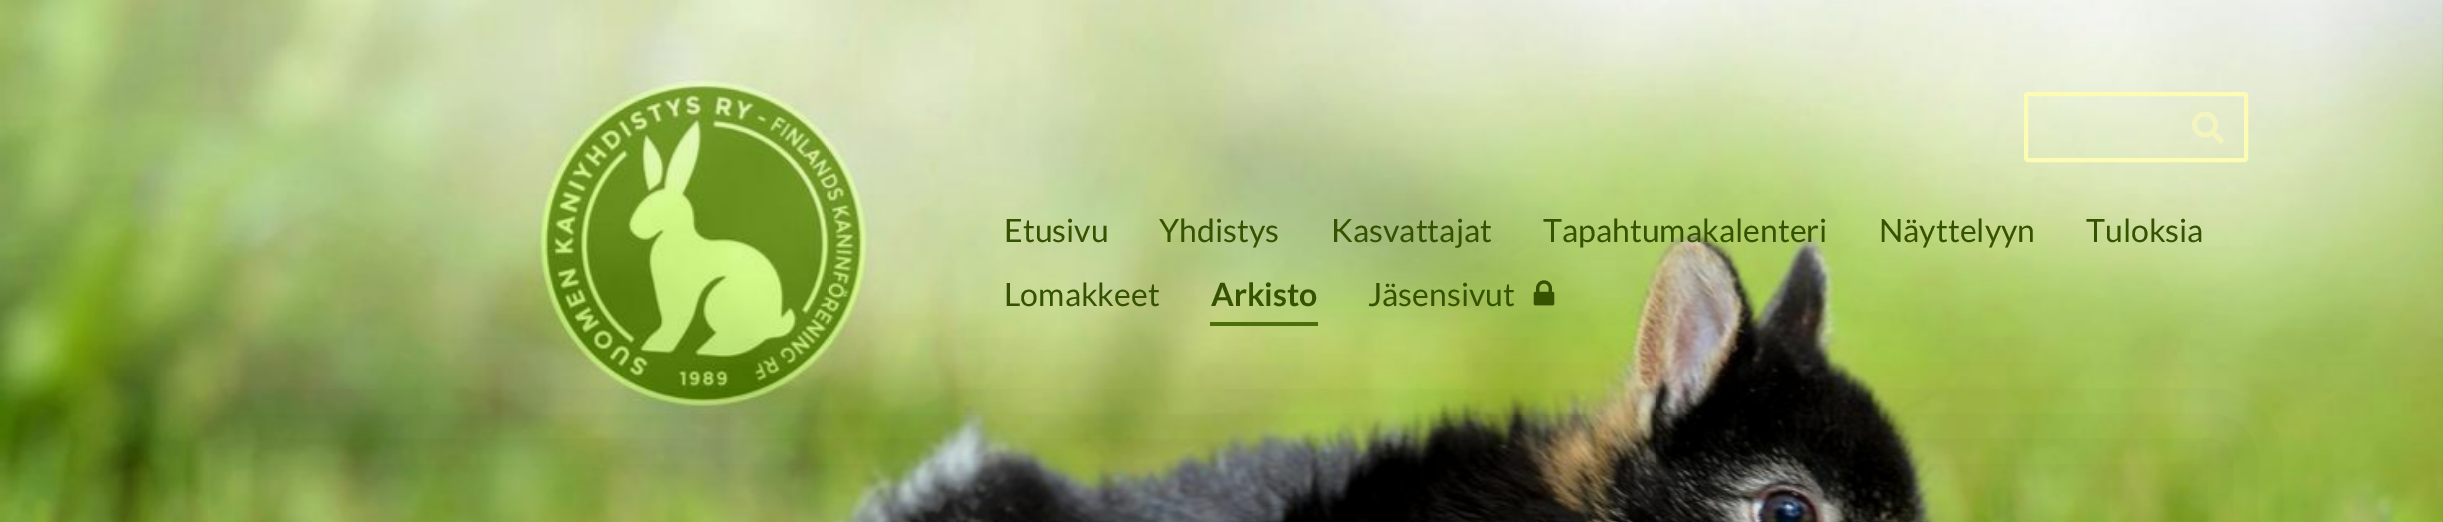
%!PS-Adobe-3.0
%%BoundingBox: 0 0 2443 522
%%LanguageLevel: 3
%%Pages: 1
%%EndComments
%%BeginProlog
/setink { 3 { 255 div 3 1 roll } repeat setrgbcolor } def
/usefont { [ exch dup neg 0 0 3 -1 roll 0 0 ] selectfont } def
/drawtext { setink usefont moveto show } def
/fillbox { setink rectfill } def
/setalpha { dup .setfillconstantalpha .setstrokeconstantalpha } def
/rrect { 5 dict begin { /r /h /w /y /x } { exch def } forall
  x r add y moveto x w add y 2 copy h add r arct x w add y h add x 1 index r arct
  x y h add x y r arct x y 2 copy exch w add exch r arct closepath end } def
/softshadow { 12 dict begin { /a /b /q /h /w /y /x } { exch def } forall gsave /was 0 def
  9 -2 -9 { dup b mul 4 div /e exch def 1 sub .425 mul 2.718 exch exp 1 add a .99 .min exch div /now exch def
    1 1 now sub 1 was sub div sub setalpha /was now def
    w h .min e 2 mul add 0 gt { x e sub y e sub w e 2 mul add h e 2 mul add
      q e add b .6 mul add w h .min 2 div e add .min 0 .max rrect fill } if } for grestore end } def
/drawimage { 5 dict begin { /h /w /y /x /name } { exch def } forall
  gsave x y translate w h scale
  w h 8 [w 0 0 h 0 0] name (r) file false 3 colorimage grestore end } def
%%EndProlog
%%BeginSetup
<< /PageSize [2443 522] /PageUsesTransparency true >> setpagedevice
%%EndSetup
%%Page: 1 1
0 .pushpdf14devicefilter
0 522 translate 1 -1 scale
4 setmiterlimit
0 0 2443 522 255 255 255 fillbox
(assets/img1.rgb) 0 0 2443 522 drawimage
253 252 181 setink
4 setlinewidth
2026 94 220 66 2 rrect stroke
(assets/img2.rgb) 2192 112 32 32 drawimage
(Etusivu) 1004 242 /Lato-Regular 32 53 82 0 drawtext
(Yhdistys) 1159 242 /Lato-Regular 32 53 82 0 drawtext
(Kasvattajat) 1331 242 /Lato-Regular 32 53 82 0 drawtext
(Tapahtumakalenteri) 1543 242 /Lato-Regular 32 53 82 0 drawtext
(Näyttelyyn) 1879 242 /Lato-Regular 32 53 82 0 drawtext
(Tuloksia) 2086 242 /Lato-Regular 32 53 82 0 drawtext
(Lomakkeet) 1004 306 /Lato-Regular 32 53 82 0 drawtext
(Arkisto) 1211 306 /Lato-Bold 32 53 82 0 drawtext
1210 322 108 4 75 111 9 fillbox
(Jäsensivut) 1368 306 /Lato-Regular 32 53 82 0 drawtext
(assets/img3.rgb) 1533 280 22 26 drawimage
0 0 0 setink
198 426 2048 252 6 50 0.1 softshadow
.poppdf14devicefilter showpage
%%EOF
